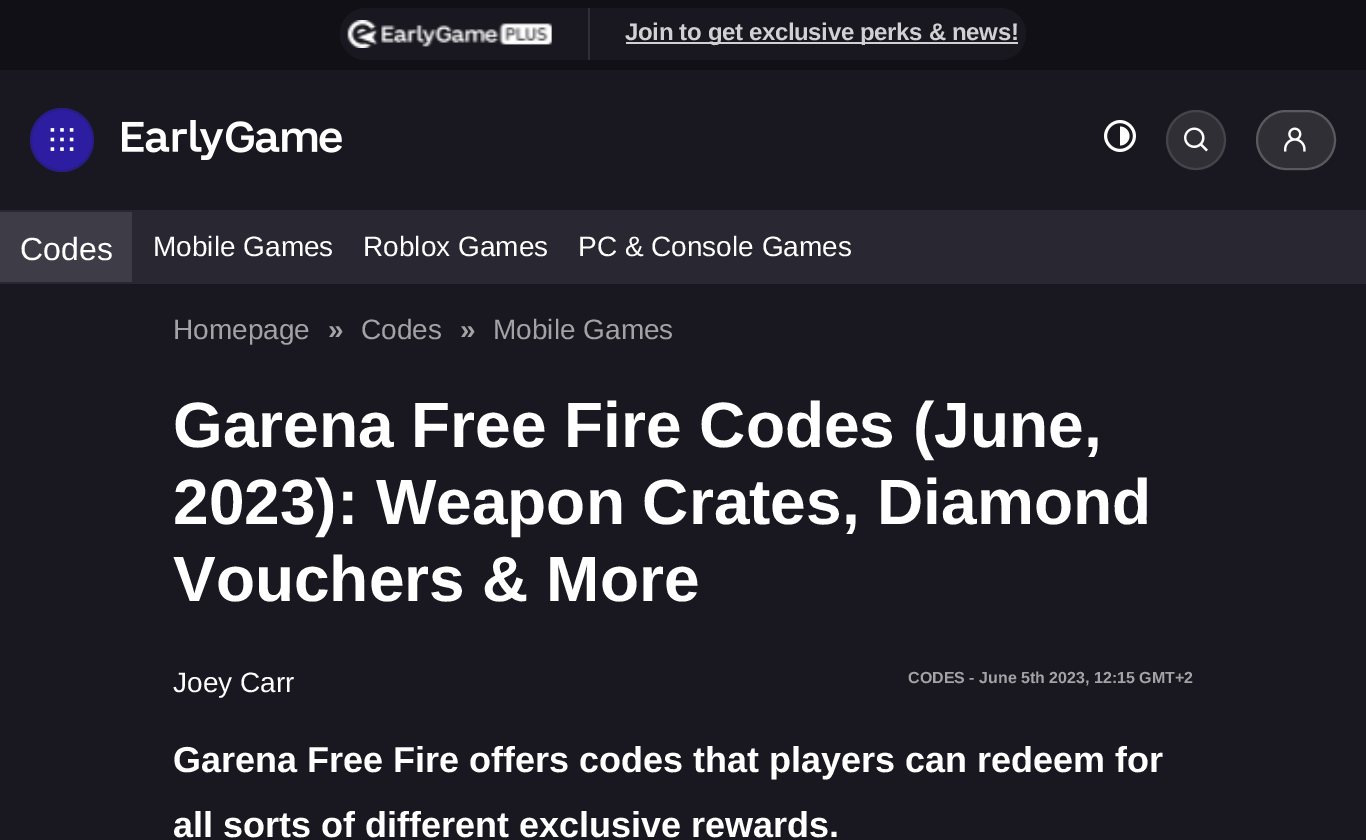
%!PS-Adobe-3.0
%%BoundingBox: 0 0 1366 840
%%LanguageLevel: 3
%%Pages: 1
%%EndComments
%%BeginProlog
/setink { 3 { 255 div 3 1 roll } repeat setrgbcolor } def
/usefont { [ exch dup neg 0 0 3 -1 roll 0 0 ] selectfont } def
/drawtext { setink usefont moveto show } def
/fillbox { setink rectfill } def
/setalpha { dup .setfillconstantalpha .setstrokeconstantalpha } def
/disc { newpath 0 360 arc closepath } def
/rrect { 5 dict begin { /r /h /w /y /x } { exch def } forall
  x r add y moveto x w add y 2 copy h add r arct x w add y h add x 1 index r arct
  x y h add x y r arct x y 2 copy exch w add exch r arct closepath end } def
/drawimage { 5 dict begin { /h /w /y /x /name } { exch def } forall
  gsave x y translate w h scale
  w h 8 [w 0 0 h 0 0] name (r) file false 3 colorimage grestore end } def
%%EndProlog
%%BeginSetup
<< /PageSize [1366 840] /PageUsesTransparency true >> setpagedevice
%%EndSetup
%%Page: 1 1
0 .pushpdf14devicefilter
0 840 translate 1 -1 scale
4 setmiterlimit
0 0 1366 840 25 24 32 fillbox
0 0 1366 70 17 16 22 fillbox
25 24 32 setink
340 8 686 52 26 rrect fill
(assets/img1.rgb) 347 20 205 28 drawimage
588 8 2 52 48 47 54 fillbox
626 42 392 2 209 209 210 fillbox
/LiberationSans-Bold 24 usefont
209 209 211 setink
625 40 moveto -0.35 0 (Join to get exclusive perks & news!) ashow
44 29 161 setink
62 140 32 disc fill
0.2 setalpha
25 24 32 setink
2 setlinewidth
62 140 31 disc stroke
1 setalpha
(assets/img2.rgb) 50 128 24 23 drawimage
(assets/img3.rgb) 122 120 220 40 drawimage
(assets/img4.rgb) 1104 120 32 32 drawimage
48 47 54 setink
1196 140 30 disc fill
0.1 setalpha
255 255 255 setink
1196 140 29 disc stroke
1 setalpha
(assets/img5.rgb) 1184 127 24 25 drawimage
48 47 54 setink
1256 110 80 60 30 rrect fill
0.2 setalpha
255 255 255 setink
1257 111 78 58 29 rrect stroke
1 setalpha
(assets/img6.rgb) 1284 127 22 25 drawimage
0 210 1366 74 40 39 50 fillbox
0 212 132 70 62 61 71 fillbox
(Codes) 20 260 /LiberationSans-Regular 32 255 255 255 drawtext
(Mobile Games) 153 256 /LiberationSans-Regular 28 255 255 255 drawtext
(Roblox Games) 363 256 /LiberationSans-Regular 28 255 255 255 drawtext
(PC & Console Games) 578 256 /LiberationSans-Regular 28 255 255 255 drawtext
(Homepage) 173 339 /LiberationSans-Regular 28 163 163 166 drawtext
(») 328 339 /LiberationSans-Bold 28 163 163 166 drawtext
(Codes) 361 339 /LiberationSans-Regular 28 163 163 166 drawtext
(») 460 339 /LiberationSans-Bold 28 163 163 166 drawtext
(Mobile Games) 493 339 /LiberationSans-Regular 28 163 163 166 drawtext
(Garena Free Fire Codes \(June,) 173 447 /LiberationSans-Bold 64 255 255 255 drawtext
(2023\): Weapon Crates, Diamond) 173 524 /LiberationSans-Bold 64 255 255 255 drawtext
(Vouchers & More) 173 601 /LiberationSans-Bold 64 255 255 255 drawtext
(Joey Carr) 173 692 /LiberationSans-Regular 28 255 255 255 drawtext
(CODES - June 5th 2023, 12:15 GMT+2) 908 683 /LiberationSans-Bold 16 163 163 166 drawtext
(Garena Free Fire offers codes that players can redeem for) 173 772 /LiberationSans-Bold 36 255 255 255 drawtext
(all sorts of different exclusive rewards.) 173 837 /LiberationSans-Bold 36 255 255 255 drawtext
.poppdf14devicefilter showpage
%%EOF
